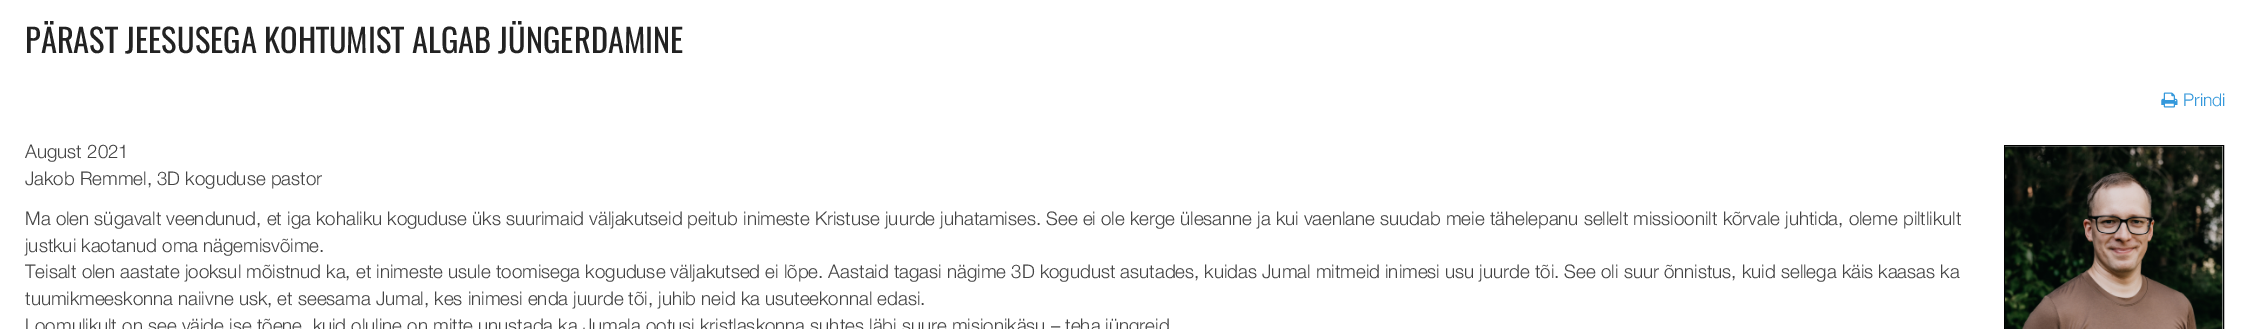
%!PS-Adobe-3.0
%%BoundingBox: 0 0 2255 329
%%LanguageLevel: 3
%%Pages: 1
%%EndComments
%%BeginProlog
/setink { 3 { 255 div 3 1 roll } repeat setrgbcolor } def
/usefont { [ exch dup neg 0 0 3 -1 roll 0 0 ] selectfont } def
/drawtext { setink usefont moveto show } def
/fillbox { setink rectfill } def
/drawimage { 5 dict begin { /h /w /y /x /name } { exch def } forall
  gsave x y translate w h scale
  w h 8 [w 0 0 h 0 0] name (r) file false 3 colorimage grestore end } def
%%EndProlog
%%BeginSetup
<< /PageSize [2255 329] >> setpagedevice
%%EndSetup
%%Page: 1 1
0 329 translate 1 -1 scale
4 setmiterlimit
0 0 2255 329 255 255 255 fillbox
(PÄRAST JEESUSEGA KOHTUMIST ALGAB JÜNGERDAMINE) 25 53 /Oswald-Regular 32.5 34 34 34 drawtext
(assets/img1.rgb) 2161 92 17 16 drawimage
(Prindi) 2183 106 /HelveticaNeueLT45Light-Light 17.5 52 152 219 drawtext
(August 2021) 25 158 /HelveticaNeueLT45Light-Light 18.75 68 68 68 drawtext
0 0 0 setink
2004.5 145.5 219 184 rectstroke
(assets/img2.rgb) 2005 146 218 183 drawimage
(Jakob Remmel, 3D koguduse pastor) 25 185 /HelveticaNeueLT45Light-Light 18.75 68 68 68 drawtext
(Ma olen sügavalt veendunud, et iga kohaliku koguduse üks suurimaid väljakutseid peitub inimeste Kristuse juurde juhatamises. See ei ole kerge ülesanne ja kui vaenlane suudab meie tähelepanu sellelt missioonilt kõrvale juhtida, oleme piltlikult) 25 225 /HelveticaNeueLT45Light-Light 18.75 68 68 68 drawtext
(justkui kaotanud oma nägemisvõime.) 25 252 /HelveticaNeueLT45Light-Light 18.75 68 68 68 drawtext
(Teisalt olen aastate jooksul mõistnud ka, et inimeste usule toomisega koguduse väljakutsed ei lõpe. Aastaid tagasi nägime 3D kogudust asutades, kuidas Jumal mitmeid inimesi usu juurde tõi. See oli suur õnnistus, kuid sellega käis kaasas ka) 25 278 /HelveticaNeueLT45Light-Light 18.75 68 68 68 drawtext
(tuumikmeeskonna naiivne usk, et seesama Jumal, kes inimesi enda juurde tõi, juhib neid ka usuteekonnal edasi.) 25 305 /HelveticaNeueLT45Light-Light 18.75 68 68 68 drawtext
(Loomulikult on see väide ise tõene, kuid oluline on mitte unustada ka Jumala ootusi kristlaskonna suhtes läbi suure misjonikäsu – teha jüngreid) 25 332 /HelveticaNeueLT45Light-Light 18.75 68 68 68 drawtext
showpage
%%EOF
